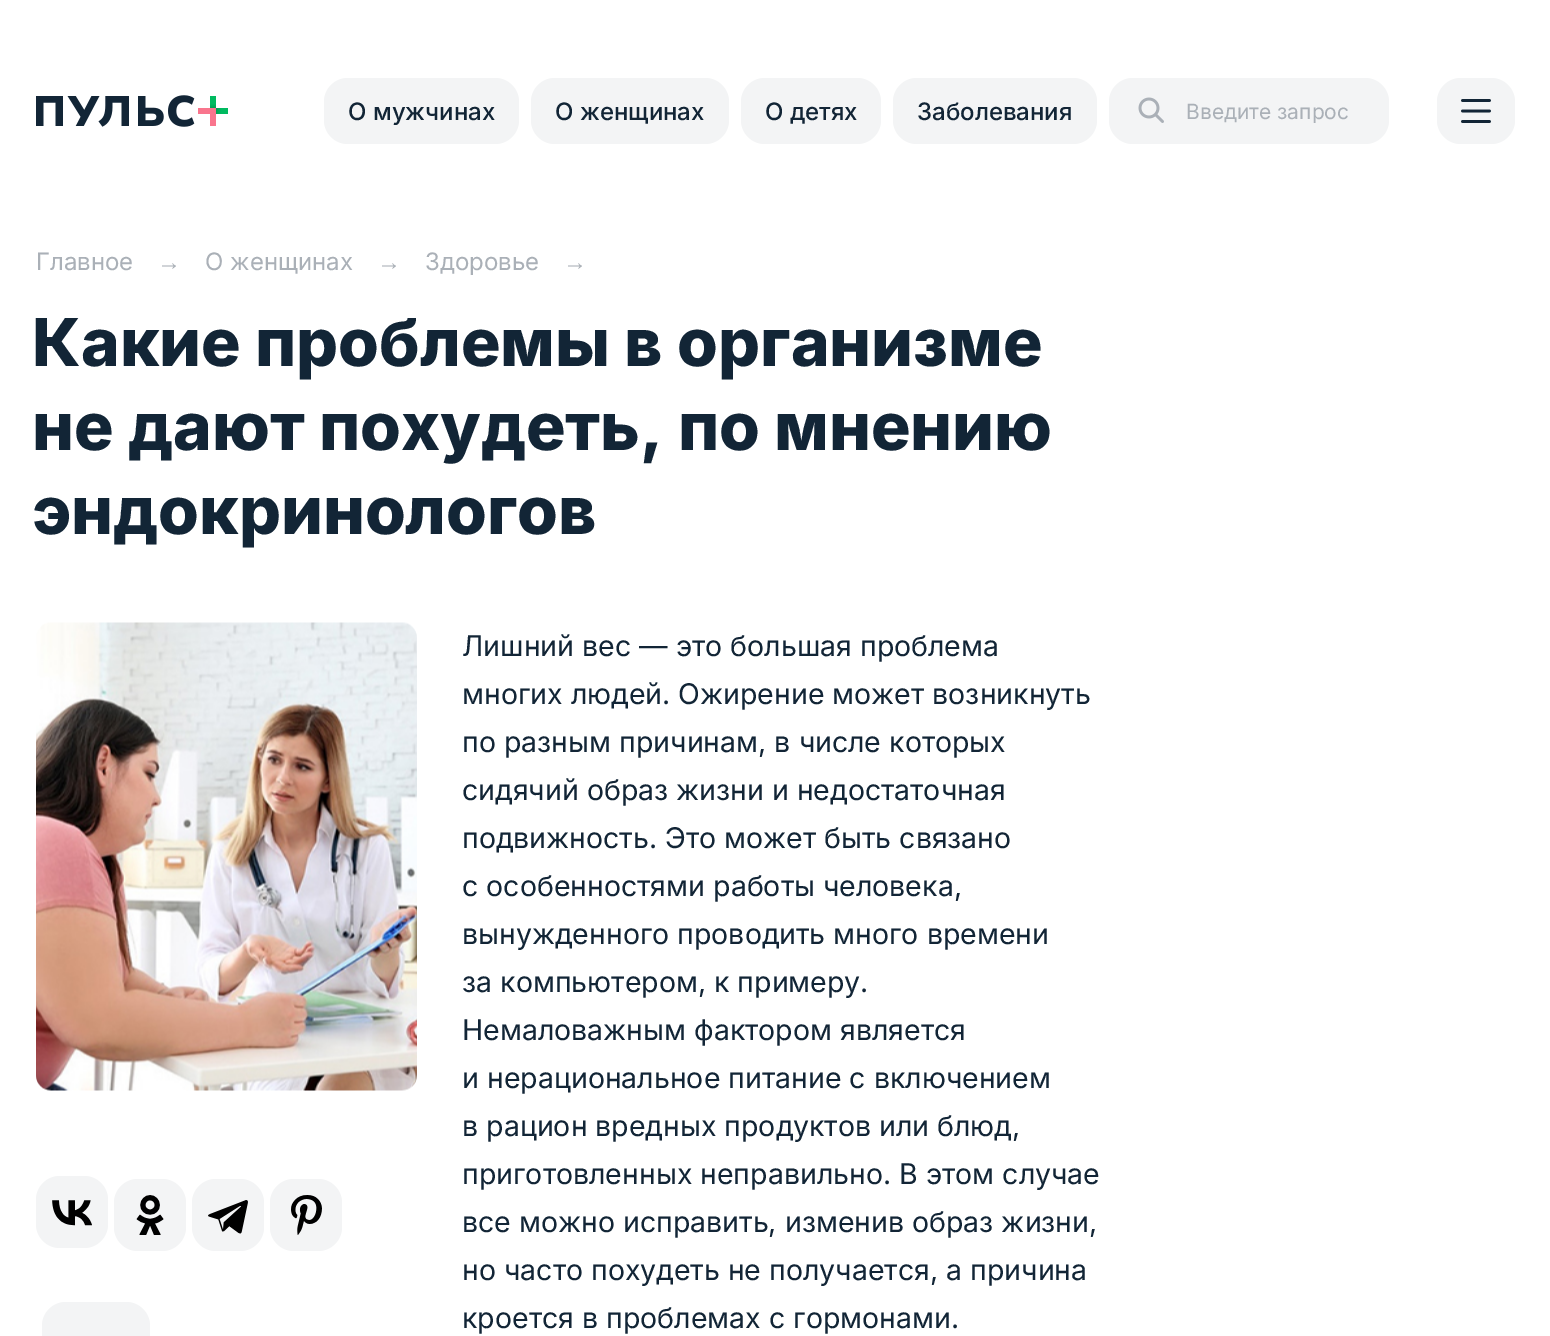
%!PS-Adobe-3.0
%%BoundingBox: 0 0 1550 1336
%%LanguageLevel: 3
%%Pages: 1
%%EndComments
%%BeginProlog
/setink { 3 { 255 div 3 1 roll } repeat setrgbcolor } def
/usefont { [ exch dup neg 0 0 3 -1 roll 0 0 ] selectfont } def
/drawtext { setink usefont moveto show } def
/fillbox { setink rectfill } def
/rrect { 5 dict begin { /r /h /w /y /x } { exch def } forall
  x r add y moveto x w add y 2 copy h add r arct x w add y h add x 1 index r arct
  x y h add x y r arct x y 2 copy exch w add exch r arct closepath end } def
/drawimage { 5 dict begin { /h /w /y /x /name } { exch def } forall
  gsave x y translate w h scale
  w h 8 [w 0 0 h 0 0] name (r) file false 3 colorimage grestore end } def
%%EndProlog
%%BeginSetup
<< /PageSize [1550 1336] >> setpagedevice
%%EndSetup
%%Page: 1 1
0 1336 translate 1 -1 scale
4 setmiterlimit
0 0 1550 1336 255 255 255 fillbox
(assets/img1.rgb) 36 95 192 32 drawimage
243 244 245 setink
324 78 195 66 24 rrect fill
(О мужчинах) 348 120 /Inter-Medium 24 18 37 54 drawtext
243 244 245 setink
531 78 198 66 24 rrect fill
(О женщинах) 555 120 /Inter-Medium 24 18 37 54 drawtext
243 244 245 setink
741 78 140 66 24 rrect fill
(О детях) 765 120 /Inter-Medium 24 18 37 54 drawtext
243 244 245 setink
893 78 204 66 24 rrect fill
(Заболевания) 917 120 /Inter-Medium 24 18 37 54 drawtext
243 244 245 setink
1109 78 280 66 24 rrect fill
(assets/img2.rgb) 1138 97 26 26 drawimage
gsave
1187 98 171 25 rectclip
(Введите запрос) 1186 119 /Inter-Regular 21 170 176 183 drawtext
grestore
1437 78 78 66 24 rrect fill
(assets/img3.rgb) 1461 99 30 24 drawimage
(Главное) 36 270 /Inter-Regular 24 170 176 183 drawtext
(→) 157 270 /LiberationSans-Regular 24 170 176 183 drawtext
(О женщинах) 205 270 /Inter-Regular 24 170 176 183 drawtext
(→) 377 270 /LiberationSans-Regular 24 170 176 183 drawtext
(Здоровье) 425 270 /Inter-Regular 24 170 176 183 drawtext
(→) 563 270 /LiberationSans-Regular 24 170 176 183 drawtext
(Какие проблемы в организме) 32 366 /Inter-ExtraBold 66 18 37 54 drawtext
(не дают похудеть, по мнению) 32 450 /Inter-ExtraBold 66 18 37 54 drawtext
(эндокринологов) 32 534 /Inter-ExtraBold 66 18 37 54 drawtext
(assets/img4.rgb) 36 622 381 469 drawimage
243 244 245 setink
36 1176 72 72 24 rrect fill
(assets/img5.rgb) 52 1200 40 26 drawimage
114 1179 72 72 24 rrect fill
(assets/img6.rgb) 136 1195 28 40 drawimage
192 1179 72 72 24 rrect fill
(assets/img7.rgb) 208 1200 40 34 drawimage
270 1179 72 72 24 rrect fill
(assets/img8.rgb) 291 1195 31 40 drawimage
42 1302 108 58 24 rrect fill
(Лишний вес — это большая проблема) 462 656 /Inter-Regular 28.5 18 37 54 drawtext
(многих людей. Ожирение может возникнуть) 462 704 /Inter-Regular 28.5 18 37 54 drawtext
(по разным причинам, в числе которых) 462 752 /Inter-Regular 28.5 18 37 54 drawtext
(сидячий образ жизни и недостаточная) 462 800 /Inter-Regular 28.5 18 37 54 drawtext
(подвижность. Это может быть связано) 462 848 /Inter-Regular 28.5 18 37 54 drawtext
(с особенностями работы человека,) 462 896 /Inter-Regular 28.5 18 37 54 drawtext
(вынужденного проводить много времени) 462 944 /Inter-Regular 28.5 18 37 54 drawtext
(за компьютером, к примеру.) 462 992 /Inter-Regular 28.5 18 37 54 drawtext
(Немаловажным фактором является) 462 1040 /Inter-Regular 28.5 18 37 54 drawtext
(и нерациональное питание с включением) 462 1088 /Inter-Regular 28.5 18 37 54 drawtext
(в рацион вредных продуктов или блюд,) 462 1136 /Inter-Regular 28.5 18 37 54 drawtext
(приготовленных неправильно. В этом случае) 462 1184 /Inter-Regular 28.5 18 37 54 drawtext
(все можно исправить, изменив образ жизни,) 462 1232 /Inter-Regular 28.5 18 37 54 drawtext
(но часто похудеть не получается, а причина) 462 1280 /Inter-Regular 28.5 18 37 54 drawtext
(кроется в проблемах с гормонами.) 462 1328 /Inter-Regular 28.5 18 37 54 drawtext
showpage
%%EOF
